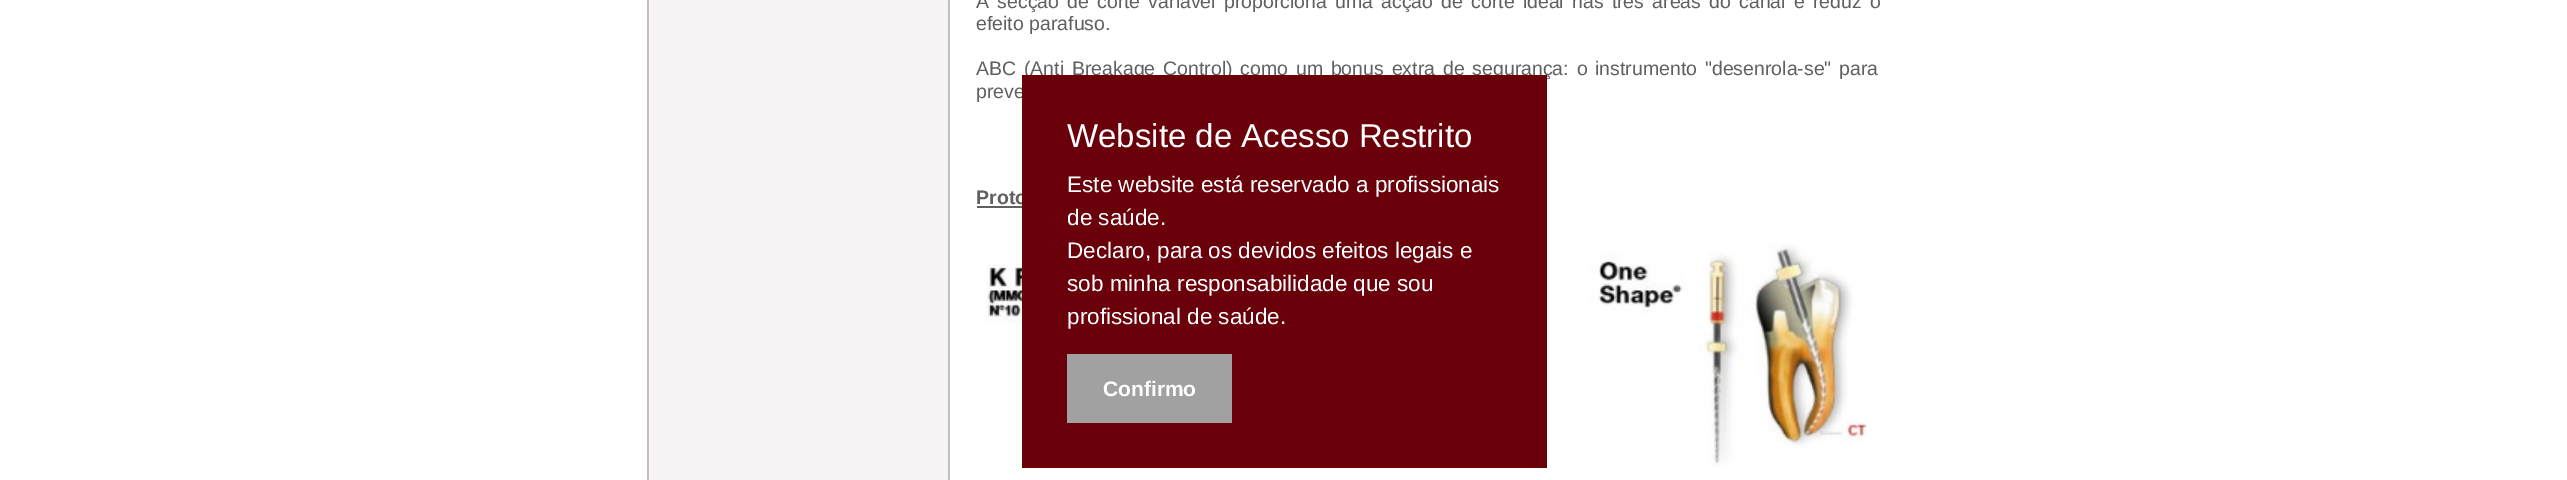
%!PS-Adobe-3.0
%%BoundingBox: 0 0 2567 480
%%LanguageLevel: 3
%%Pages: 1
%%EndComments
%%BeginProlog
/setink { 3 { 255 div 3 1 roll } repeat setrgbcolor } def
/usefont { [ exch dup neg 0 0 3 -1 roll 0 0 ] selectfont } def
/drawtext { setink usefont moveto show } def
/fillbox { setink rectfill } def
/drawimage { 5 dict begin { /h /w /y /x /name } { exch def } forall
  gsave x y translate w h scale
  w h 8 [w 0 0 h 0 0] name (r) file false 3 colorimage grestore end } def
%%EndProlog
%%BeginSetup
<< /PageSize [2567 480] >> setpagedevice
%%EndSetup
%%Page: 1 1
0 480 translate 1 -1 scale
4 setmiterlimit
0 0 2567 480 255 255 255 fillbox
649 0 299 480 247 242 243 fillbox
948 0 2 480 192 192 192 fillbox
647 0 2 480 192 192 192 fillbox
/LiberationSans-Regular 19.5 usefont
96 96 96 setink
976 8 moveto 2.75 0 32 (A secção de corte variável proporciona uma acção de corte ideal nas três áreas do canal e reduz o) widthshow
(efeito parafuso.) 976 30 /LiberationSans-Regular 19.5 96 96 96 drawtext
976 75 moveto 2.4 0 32 (ABC \(Anti Breakage Control\) como um bonus extra de segurança: o instrumento "desenrola-se" para) widthshow
(preve) 976 98 /LiberationSans-Regular 19.5 96 96 96 drawtext
(Proto) 976 204 /LiberationSans-Bold 19.5 96 96 96 drawtext
977 206 45 2 96 96 96 fillbox
(assets/img1.rgb) 986 241 881 226 drawimage
1022 75 525 393 105 0 10 fillbox
(Website de Acesso Restrito) 1067 147 /LiberationSans-Regular 33 255 255 255 drawtext
(Este website está reservado a profissionais) 1067 192 /LiberationSans-Regular 22.5 255 255 255 drawtext
(de saúde.) 1067 225 /LiberationSans-Regular 22.5 255 255 255 drawtext
(Declaro, para os devidos efeitos legais e) 1067 258 /LiberationSans-Regular 22.5 255 255 255 drawtext
(sob minha responsabilidade que sou) 1067 291 /LiberationSans-Regular 22.5 255 255 255 drawtext
(profissional de saúde.) 1067 324 /LiberationSans-Regular 22.5 255 255 255 drawtext
1067 354 165 69 161 161 161 fillbox
(Confirmo) 1103 396 /LiberationSans-Bold 21 255 255 255 drawtext
showpage
%%EOF
